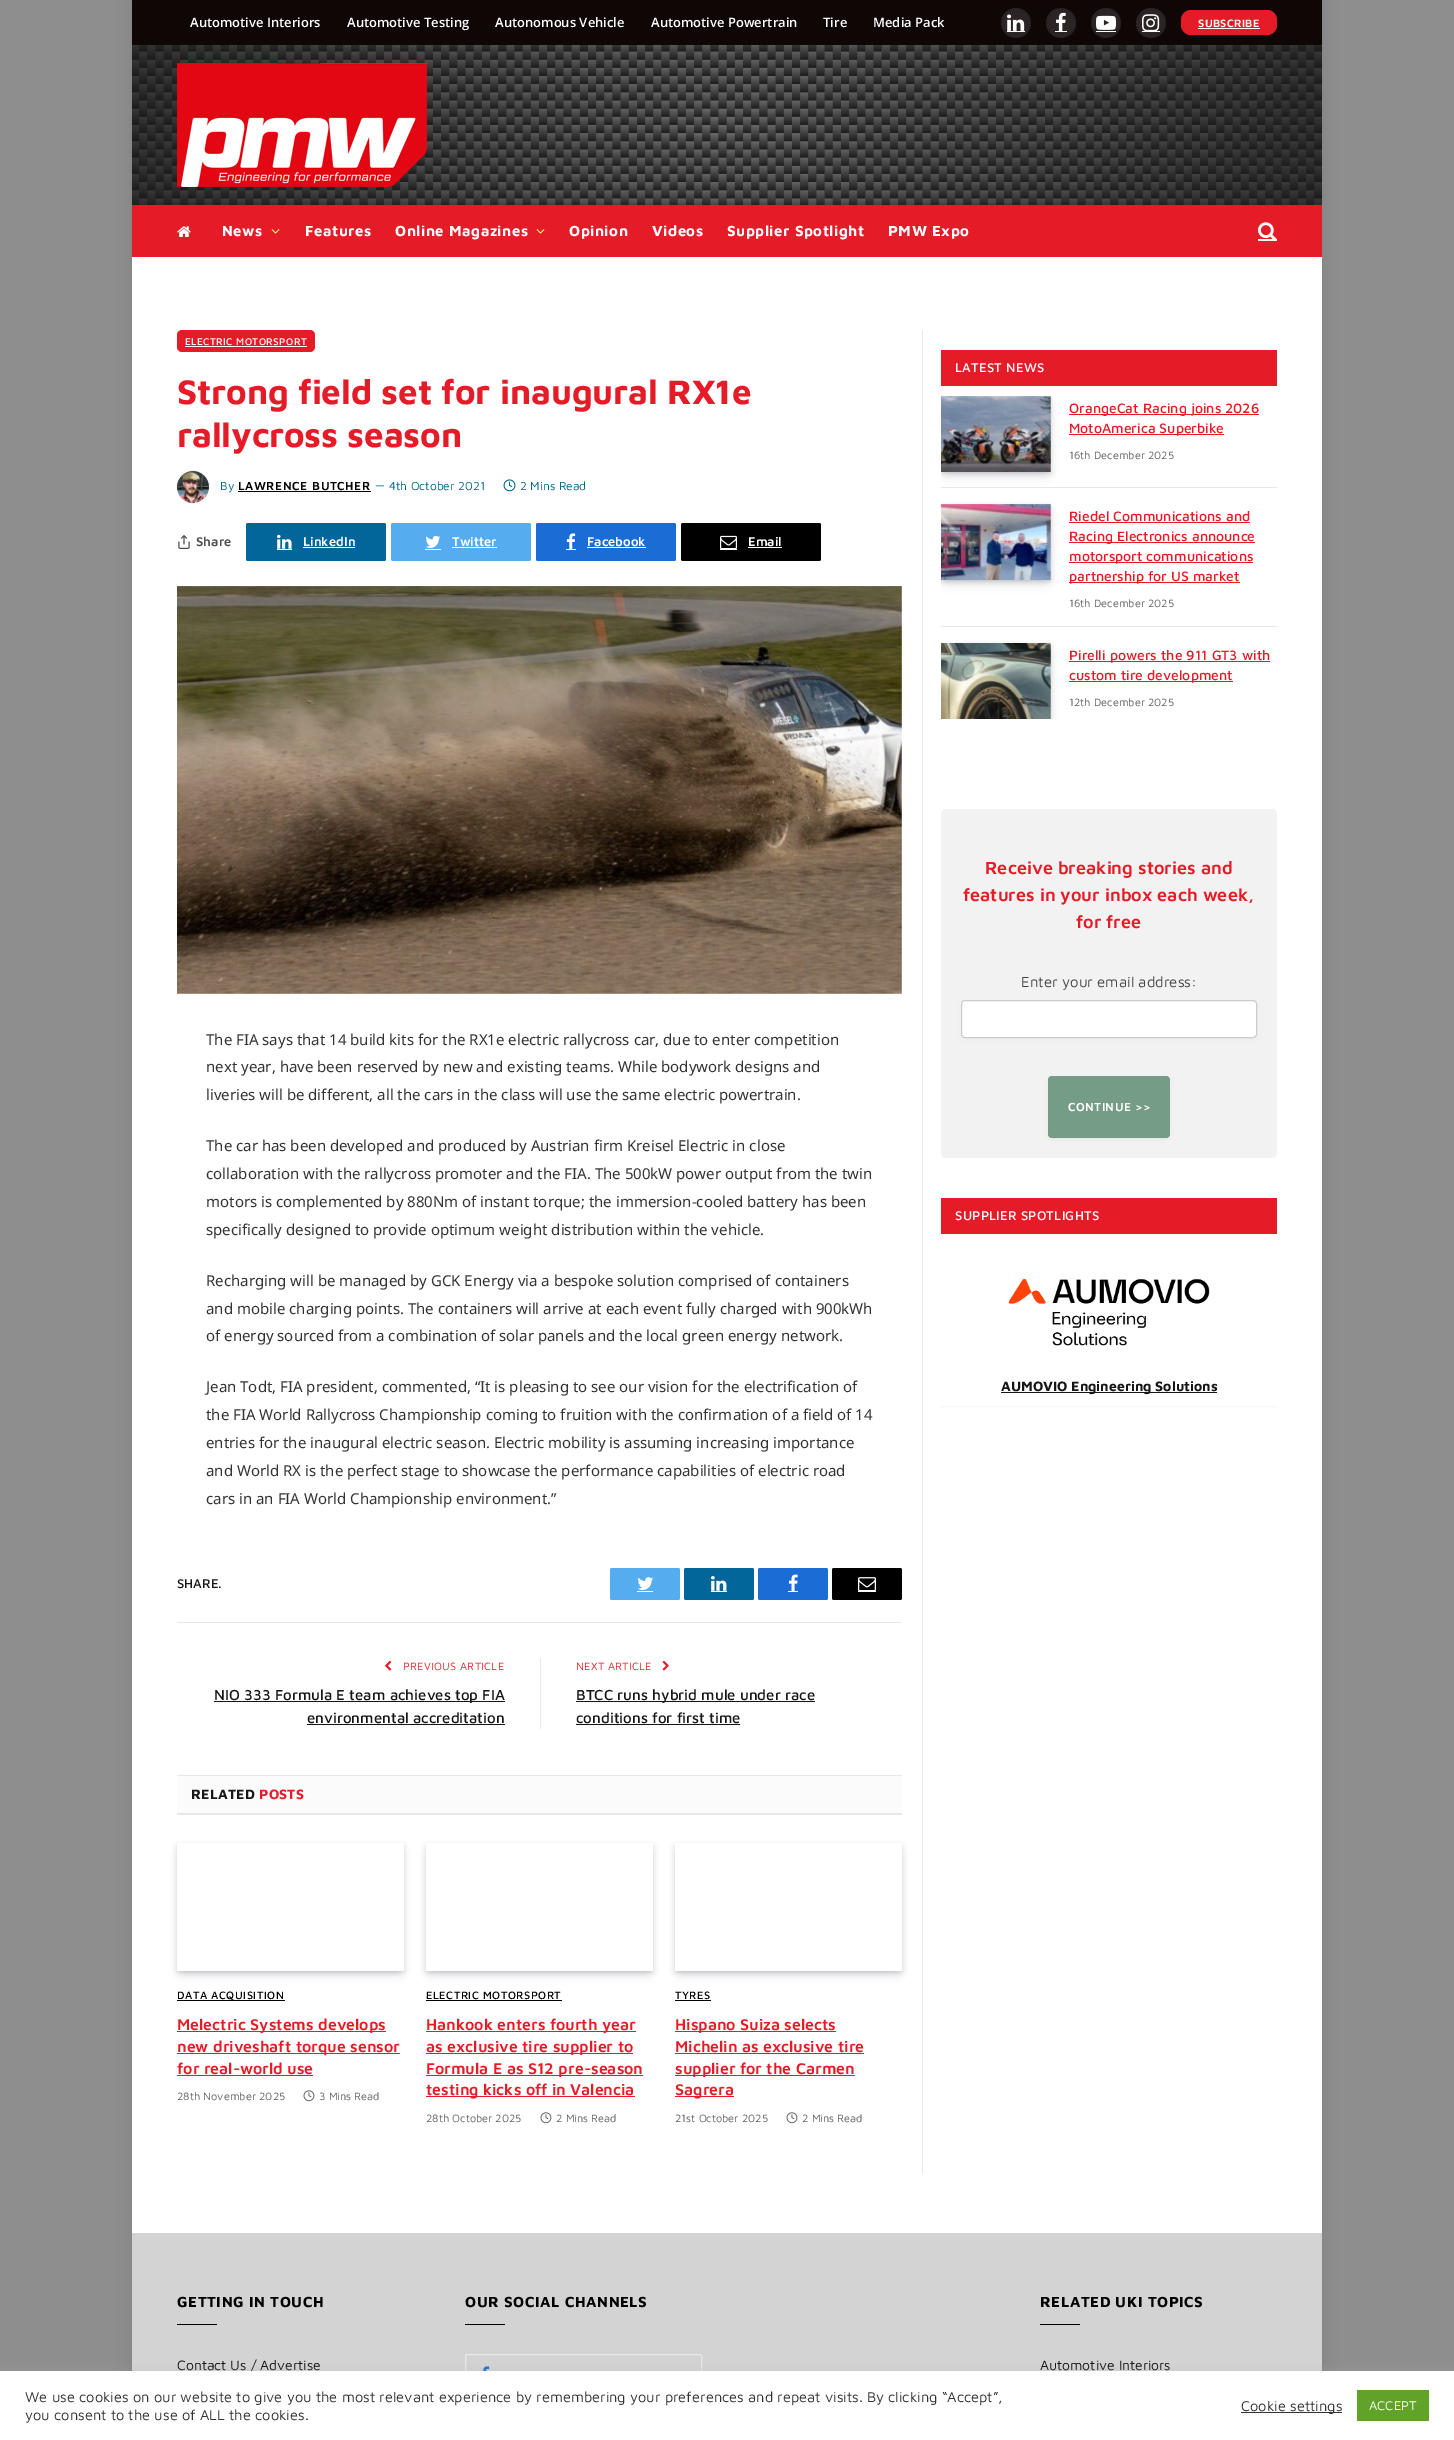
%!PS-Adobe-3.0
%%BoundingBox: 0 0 1454 2440
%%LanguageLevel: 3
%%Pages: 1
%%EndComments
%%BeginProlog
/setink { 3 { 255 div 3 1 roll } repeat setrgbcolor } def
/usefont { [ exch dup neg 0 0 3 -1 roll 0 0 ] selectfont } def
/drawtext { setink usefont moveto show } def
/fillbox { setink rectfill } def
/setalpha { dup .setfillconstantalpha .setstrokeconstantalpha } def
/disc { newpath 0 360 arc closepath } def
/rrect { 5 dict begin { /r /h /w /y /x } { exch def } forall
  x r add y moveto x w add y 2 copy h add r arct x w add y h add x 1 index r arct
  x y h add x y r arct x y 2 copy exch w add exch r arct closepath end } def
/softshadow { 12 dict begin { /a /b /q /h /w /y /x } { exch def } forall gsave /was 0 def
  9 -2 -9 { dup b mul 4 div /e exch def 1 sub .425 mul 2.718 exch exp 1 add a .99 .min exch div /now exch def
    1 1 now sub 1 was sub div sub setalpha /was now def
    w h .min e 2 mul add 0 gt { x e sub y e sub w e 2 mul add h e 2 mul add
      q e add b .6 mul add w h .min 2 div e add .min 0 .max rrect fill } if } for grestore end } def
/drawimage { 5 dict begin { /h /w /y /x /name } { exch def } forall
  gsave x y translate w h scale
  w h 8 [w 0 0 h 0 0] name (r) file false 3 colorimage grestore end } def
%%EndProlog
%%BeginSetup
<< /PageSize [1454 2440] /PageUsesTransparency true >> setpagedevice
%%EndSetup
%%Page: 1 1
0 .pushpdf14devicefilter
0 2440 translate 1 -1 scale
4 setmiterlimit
0 0 1454 2440 142 142 142 fillbox
0 0 0 setink
132 0 1190 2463 0 7.5 0.08 softshadow
132 257 1190 1976 255 255 255 fillbox
132 0 1190 45 15 6 6 fillbox
(Automotive Interiors) 190 27 /OpenSans-SemiBold 13 255 255 255 drawtext
(Automotive Testing) 347 27 /OpenSans-SemiBold 13 255 255 255 drawtext
(Autonomous Vehicle) 495 27 /OpenSans-SemiBold 13 255 255 255 drawtext
(Automotive Powertrain) 651 27 /OpenSans-SemiBold 13 255 255 255 drawtext
(Tire) 823 27 /OpenSans-SemiBold 13 255 255 255 drawtext
(Media Pack) 873 27 /OpenSans-SemiBold 13 255 255 255 drawtext
44 36 36 setink
1016 23 15 disc fill
0.09 setalpha
0 0 0 setink
1016 23 14.5 disc stroke
1 setalpha
(assets/img1.rgb) 1007 14 18 17 drawimage
1007 31 18 1 255 255 255 fillbox
44 36 36 setink
1061 23 15 disc fill
0.09 setalpha
0 0 0 setink
1061 23 14.5 disc stroke
1 setalpha
(assets/img2.rgb) 1056 12 10 19 drawimage
1055 31 12 1 255 255 255 fillbox
44 36 36 setink
1106 23 15 disc fill
0.09 setalpha
0 0 0 setink
1106 23 14.5 disc stroke
1 setalpha
(assets/img3.rgb) 1096 15 20 15 drawimage
1096 31 20 1 255 255 255 fillbox
44 36 36 setink
1151 23 15 disc fill
0.09 setalpha
0 0 0 setink
1151 23 14.5 disc stroke
1 setalpha
(assets/img4.rgb) 1142 14 18 17 drawimage
1142 31 18 1 255 255 255 fillbox
229 28 40 setink
1181 10 96 25 10 rrect fill
/MavenPro-SemiBold 11 usefont
255 255 255 setink
1198 27 moveto 0.3 0 (SUBSCRIBE) ashow
1198 28 62 1 255 255 255 fillbox
(assets/img5.rgb) 132 45 1190 160 drawimage
(assets/img6.rgb) 177 63 250 124 drawimage
132 205 1190 52 229 28 40 fillbox
(assets/img7.rgb) 177 226 14 11 drawimage
/MavenPro-Bold 15 usefont
255 255 255 setink
222 236 moveto 0.5 0 (News) ashow
(assets/img8.rgb) 271 229 9 5 drawimage
305 236 moveto 0.5 0 (Features) ashow
395 236 moveto 0.5 0 (Online Magazines) ashow
(assets/img8.rgb) 536 229 9 5 drawimage
569 236 moveto 0.5 0 (Opinion) ashow
652 236 moveto 0.5 0 (Videos) ashow
727 236 moveto 0.5 0 (Supplier Spotlight) ashow
888 236 moveto 0.5 0 (PMW Expo) ashow
(assets/img9.rgb) 1258 222 19 17 drawimage
1258 239 19 2 255 255 255 fillbox
229 28 40 setink
177 330 138 22 5 rrect fill
/MavenPro-Medium 10 usefont
255 255 255 setink
185 345 moveto 0.4 0 (ELECTRIC MOTORSPORT) ashow
185 346 122 1 255 255 255 fillbox
/MavenPro-Bold 35 usefont
229 28 40 setink
177 404 moveto -0.15 0 (Strong field set for inaugural RX1e) ashow
177 447 moveto -0.15 0 (rallycross season) ashow
0 0 0 setink
177 471 32 32 16 0.5 0.2 softshadow
(assets/img10.rgb) 177 471 32 32 drawimage
(By) 220 490 /MavenPro-Regular 12 0 103 136 drawtext
/MavenPro-SemiBold 12 usefont
0 0 0 setink
238 490 moveto 0.6 0 (LAWRENCE BUTCHER) ashow
238 491 133 1 0 0 0 fillbox
(—) 375 489 /MavenPro-Regular 11 0 103 136 drawtext
(4th October 2021) 389 490 /MavenPro-Regular 12 0 103 136 drawtext
(assets/img11.rgb) 503 479 13 13 drawimage
(2 Mins Read) 520 490 /MavenPro-Regular 12 0 103 136 drawtext
(assets/img12.rgb) 178 535 12 14 drawimage
(Share) 196 546 /MavenPro-SemiBold 13 80 80 80 drawtext
2 102 154 setink
246 523 140 38 2 rrect fill
(assets/img13.rgb) 277 534 15 15 drawimage
277 549 15 1 255 255 255 fillbox
(LinkedIn) 303 546 /MavenPro-SemiBold 13 255 255 255 drawtext
303 547 52 1 255 255 255 fillbox
85 172 239 setink
391 523 140 38 2 rrect fill
(assets/img14.rgb) 425 535 16 13 drawimage
425 549 16 1 255 255 255 fillbox
(Twitter) 452 546 /MavenPro-SemiBold 13 255 255 255 drawtext
452 547 45 1 255 255 255 fillbox
26 109 212 setink
536 523 140 38 2 rrect fill
(assets/img15.rgb) 566 533 10 16 drawimage
566 549 10 1 255 255 255 fillbox
(Facebook) 587 546 /MavenPro-SemiBold 13 255 255 255 drawtext
587 547 59 1 255 255 255 fillbox
0 0 0 setink
681 523 140 38 2 rrect fill
(assets/img16.rgb) 720 535 17 14 drawimage
720 549 17 1 255 255 255 fillbox
(Email) 748 546 /MavenPro-SemiBold 13 255 255 255 drawtext
748 547 34 1 255 255 255 fillbox
(assets/img17.rgb) 177 586 725 408 drawimage
(The FIA says that 14 build kits for the RX1e electric rallycross car, due to enter competition) 206 1045 /NotoSans-Regular 15 51 51 51 drawtext
(next year, have been reserved by new and existing teams. While bodywork designs and) 206 1072 /NotoSans-Regular 15 51 51 51 drawtext
(liveries will be different, all the cars in the class will use the same electric powertrain.) 206 1100 /NotoSans-Regular 15 51 51 51 drawtext
(The car has been developed and produced by Austrian firm Kreisel Electric in close) 206 1151 /NotoSans-Regular 15 51 51 51 drawtext
(collaboration with the rallycross promoter and the FIA. The 500kW power output from the twin) 206 1179 /NotoSans-Regular 15 51 51 51 drawtext
(motors is complemented by 880Nm of instant torque; the immersion-cooled battery has been) 206 1207 /NotoSans-Regular 15 51 51 51 drawtext
(specifically designed to provide optimum weight distribution within the vehicle.) 206 1235 /NotoSans-Regular 15 51 51 51 drawtext
(Recharging will be managed by GCK Energy via a bespoke solution comprised of containers) 206 1286 /NotoSans-Regular 15 51 51 51 drawtext
(and mobile charging points. The containers will arrive at each event fully charged with 900kWh) 206 1314 /NotoSans-Regular 15 51 51 51 drawtext
(of energy sourced from a combination of solar panels and the local green energy network.) 206 1341 /NotoSans-Regular 15 51 51 51 drawtext
(Jean Todt, FIA president, commented, “It is pleasing to see our vision for the electrification of) 206 1392 /NotoSans-Regular 15 51 51 51 drawtext
(the FIA World Rallycross Championship coming to fruition with the confirmation of a field of 14) 206 1420 /NotoSans-Regular 15 51 51 51 drawtext
(entries for the inaugural electric season. Electric mobility is assuming increasing importance) 206 1448 /NotoSans-Regular 15 51 51 51 drawtext
(and World RX is the perfect stage to showcase the performance capabilities of electric road) 206 1476 /NotoSans-Regular 15 51 51 51 drawtext
(cars in an FIA World Championship environment.”) 206 1504 /NotoSans-Regular 15 51 51 51 drawtext
(SHARE.) 177 1588 /MavenPro-Medium 13 22 22 22 drawtext
85 172 239 setink
610 1568 70 32 2 rrect fill
637 1591 16 1 255 255 255 fillbox
(assets/img18.rgb) 637 1577 17 13 drawimage
2 102 154 setink
684 1568 70 32 2 rrect fill
711 1591 16 1 255 255 255 fillbox
(assets/img19.rgb) 711 1576 16 15 drawimage
26 109 212 setink
758 1568 70 32 2 rrect fill
788 1591 10 1 255 255 255 fillbox
(assets/img20.rgb) 788 1574 10 17 drawimage
0 0 0 setink
832 1568 70 32 2 rrect fill
858 1591 18 1 255 255 255 fillbox
(assets/img21.rgb) 858 1577 18 14 drawimage
177 1622 725 1 232 232 232 fillbox
(assets/img22.rgb) 385 1660 7 11 drawimage
/MavenPro-Regular 11 usefont
229 28 40 setink
403 1670 moveto 0.3 0 (PREVIOUS ARTICLE) ashow
214 1701 291 1 22 22 22 fillbox
(NIO 333 Formula E team achieves top FIA) 214 1700 /MavenPro-Medium 15 22 22 22 drawtext
(environmental accreditation) 307 1723 /MavenPro-Medium 15 22 22 22 drawtext
307 1724 198 1 22 22 22 fillbox
540 1658 1 71 232 232 232 fillbox
/MavenPro-Regular 11 usefont
229 28 40 setink
576 1670 moveto 0.3 0 (NEXT ARTICLE) ashow
(assets/img23.rgb) 662 1660 7 11 drawimage
576 1701 239 1 22 22 22 fillbox
(BTCC runs hybrid mule under race) 576 1700 /MavenPro-Medium 15 22 22 22 drawtext
(conditions for first time) 576 1723 /MavenPro-Medium 15 22 22 22 drawtext
576 1724 164 1 22 22 22 fillbox
177 1776 725 37 251 251 251 fillbox
177 1775 725 1 232 232 232 fillbox
177 1813 725 2 232 232 232 fillbox
/MavenPro-Bold 14 usefont
22 22 22 setink
191 1799 moveto 0.25 0 (RELATED) ashow
229 28 40 setink
259 1799 moveto 0.25 0 (POSTS) ashow
gsave
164 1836 moveto 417 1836 lineto 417 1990 lineto 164 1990 lineto closepath 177 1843 moveto 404 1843 lineto 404 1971 lineto 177 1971 lineto closepath eoclip newpath
7 10 25 setink
183 1855 215 116 0 6 0.2 softshadow
grestore
gsave
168 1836 moveto 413 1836 lineto 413 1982 lineto 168 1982 lineto closepath 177 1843 moveto 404 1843 lineto 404 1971 lineto 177 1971 lineto closepath eoclip newpath
7 10 25 setink
178 1846 225 126 0 3 0.2 softshadow
grestore
177 2000 108 1 0 0 0 fillbox
/MavenPro-Medium 11 usefont
177 1999 moveto 0.5 0 (DATA ACQUISITION) ashow
177 2031 209 1 229 28 40 fillbox
(Melectric Systems develops) 177 2030 /MavenPro-SemiBold 16 229 28 40 drawtext
177 2053 223 1 229 28 40 fillbox
(new driveshaft torque sensor) 177 2052 /MavenPro-SemiBold 16 229 28 40 drawtext
(for real-world use) 177 2074 /MavenPro-SemiBold 16 229 28 40 drawtext
177 2075 136 1 229 28 40 fillbox
(28th November 2025) 177 2100 /MavenPro-Regular 11 99 99 99 drawtext
(assets/img24.rgb) 303 2090 12 12 drawimage
(3 Mins Read) 319 2100 /MavenPro-Regular 11 99 99 99 drawtext
gsave
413 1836 moveto 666 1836 lineto 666 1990 lineto 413 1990 lineto closepath 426 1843 moveto 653 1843 lineto 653 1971 lineto 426 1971 lineto closepath eoclip newpath
7 10 25 setink
432 1855 215 116 0 6 0.2 softshadow
grestore
gsave
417 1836 moveto 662 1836 lineto 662 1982 lineto 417 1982 lineto closepath 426 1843 moveto 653 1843 lineto 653 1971 lineto 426 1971 lineto closepath eoclip newpath
7 10 25 setink
427 1846 225 126 0 3 0.2 softshadow
grestore
/MavenPro-Medium 11 usefont
0 0 0 setink
426 1999 moveto 0.5 0 (ELECTRIC MOTORSPORT) ashow
426 2000 136 1 0 0 0 fillbox
426 2031 210 1 229 28 40 fillbox
(Hankook enters fourth year) 426 2030 /MavenPro-SemiBold 16 229 28 40 drawtext
426 2053 207 1 229 28 40 fillbox
(as exclusive tire supplier to) 426 2052 /MavenPro-SemiBold 16 229 28 40 drawtext
426 2075 217 1 229 28 40 fillbox
(Formula E as S12 pre-season) 426 2074 /MavenPro-SemiBold 16 229 28 40 drawtext
426 2096 209 1 229 28 40 fillbox
(testing kicks off in Valencia) 426 2095 /MavenPro-SemiBold 16 229 28 40 drawtext
(28th October 2025) 426 2122 /MavenPro-Regular 11 99 99 99 drawtext
(assets/img24.rgb) 540 2112 12 12 drawimage
(2 Mins Read) 556 2122 /MavenPro-Regular 11 99 99 99 drawtext
gsave
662 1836 moveto 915 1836 lineto 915 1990 lineto 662 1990 lineto closepath 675 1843 moveto 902 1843 lineto 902 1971 lineto 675 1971 lineto closepath eoclip newpath
7 10 25 setink
681 1855 215 116 0 6 0.2 softshadow
grestore
gsave
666 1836 moveto 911 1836 lineto 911 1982 lineto 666 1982 lineto closepath 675 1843 moveto 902 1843 lineto 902 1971 lineto 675 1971 lineto closepath eoclip newpath
7 10 25 setink
676 1846 225 126 0 3 0.2 softshadow
grestore
/MavenPro-Medium 11 usefont
0 0 0 setink
675 1999 moveto 0.5 0 (TYRES) ashow
675 2000 36 1 0 0 0 fillbox
675 2031 161 1 229 28 40 fillbox
(Hispano Suiza selects) 675 2030 /MavenPro-SemiBold 16 229 28 40 drawtext
(Michelin as exclusive tire) 675 2052 /MavenPro-SemiBold 16 229 28 40 drawtext
675 2053 189 1 229 28 40 fillbox
675 2075 180 1 229 28 40 fillbox
(supplier for the Carmen) 675 2074 /MavenPro-SemiBold 16 229 28 40 drawtext
675 2096 59 1 229 28 40 fillbox
(Sagrera) 675 2095 /MavenPro-SemiBold 16 229 28 40 drawtext
(21st October 2025) 675 2122 /MavenPro-Regular 11 99 99 99 drawtext
(assets/img24.rgb) 786 2112 12 12 drawimage
(2 Mins Read) 802 2122 /MavenPro-Regular 11 99 99 99 drawtext
922 330 1 1843 232 232 232 fillbox
941 350 336 36 229 28 40 fillbox
/MavenPro-Medium 13 usefont
255 255 255 setink
955 372 moveto 0.25 0 (LATEST NEWS) ashow
gsave
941 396 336 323 rectclip
7 10 25 setink
947 408 98 64 0 6 0.2 softshadow
942 399 108 74 0 3 0.2 softshadow
grestore
(assets/img25.rgb) 941 396 110 76 drawimage
1069 414 190 1 229 28 40 fillbox
(OrangeCat Racing joins 2026) 1069 413 /MavenPro-Medium 14 229 28 40 drawtext
1069 434 155 1 229 28 40 fillbox
(MotoAmerica Superbike) 1069 433 /MavenPro-Medium 14 229 28 40 drawtext
(16th December 2025) 1069 459 /MavenPro-Regular 11 99 99 99 drawtext
941 487 336 1 232 232 232 fillbox
gsave
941 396 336 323 rectclip
7 10 25 setink
947 516 98 64 0 6 0.2 softshadow
942 507 108 74 0 3 0.2 softshadow
grestore
(assets/img26.rgb) 941 504 110 76 drawimage
(Riedel Communications and) 1069 521 /MavenPro-Medium 14 229 28 40 drawtext
1069 522 181 1 229 28 40 fillbox
1069 542 186 1 229 28 40 fillbox
(Racing Electronics announce) 1069 541 /MavenPro-Medium 14 229 28 40 drawtext
1069 562 184 1 229 28 40 fillbox
(motorsport communications) 1069 561 /MavenPro-Medium 14 229 28 40 drawtext
1069 582 171 1 229 28 40 fillbox
(partnership for US market) 1069 581 /MavenPro-Medium 14 229 28 40 drawtext
(16th December 2025) 1069 607 /MavenPro-Regular 11 99 99 99 drawtext
941 626 336 1 232 232 232 fillbox
gsave
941 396 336 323 rectclip
7 10 25 setink
947 655 98 64 0 6 0.2 softshadow
942 646 108 74 0 3 0.2 softshadow
grestore
(assets/img27.rgb) 941 643 110 76 drawimage
1069 661 201 1 229 28 40 fillbox
(Pirelli powers the 911 GT3 with) 1069 660 /MavenPro-Medium 14 229 28 40 drawtext
1069 681 164 1 229 28 40 fillbox
(custom tire development) 1069 680 /MavenPro-Medium 14 229 28 40 drawtext
(12th December 2025) 1069 706 /MavenPro-Regular 11 99 99 99 drawtext
242 242 242 setink
941 809 336 349 5 rrect fill
(Receive breaking stories and) 985 874 /MavenPro-SemiBold 18.1 229 28 40 drawtext
(features in your inbox each week,) 963 901 /MavenPro-SemiBold 18.1 229 28 40 drawtext
(for free) 1076 928 /MavenPro-SemiBold 18.1 229 28 40 drawtext
(Enter your email address:) 1021 987 /MavenPro-Regular 15 68 68 68 drawtext
0 0 0 setink
965 1006 288 30 0 3.5 0.1 softshadow
255 255 255 setink
961.5 1000.5 295 37 3.5 rrect gsave fill grestore
204 204 204 setink
stroke
0 0 0 setink
1052 1082 114 54 0 3.5 0.16 softshadow
117 156 133 setink
1048 1076 122 62 4 rrect fill
/MavenPro-SemiBold 12 usefont
255 255 255 setink
1068 1111 moveto 0.4 0 (CONTINUE >>) ashow
941 1198 336 36 229 28 40 fillbox
/MavenPro-Medium 13 usefont
255 255 255 setink
955 1220 moveto 0.25 0 (SUPPLIER SPOTLIGHTS) ashow
238 238 238 setink
[1 1] 0 setdash
941 1406.5 moveto 1277 1406.5 lineto stroke
(assets/img28.rgb) 1008 1278 202 68 drawimage
1001 1392 216 1 22 22 22 fillbox
(AUMOVIO Engineering Solutions) 1001 1391 /MavenPro-Bold 14 22 22 22 drawtext
132 2233 1190 138 211 211 211 fillbox
/MavenPro-Bold 15 usefont
0 0 0 setink
177 2307 moveto 0.6 0 (GETTING IN TOUCH) ashow
177 2324 40 1 0 0 0 fillbox
(Contact Us / Advertise) 177 2370 /MavenPro-Regular 14 15 15 15 drawtext
/MavenPro-Bold 15 usefont
0 0 0 setink
465 2307 moveto 0.6 0 (OUR SOCIAL CHANNELS) ashow
465 2324 40 1 0 0 0 fillbox
232 232 232 setink
[] 0 setdash
465.5 2354.5 236 41 1.5 rrect stroke
(assets/img29.rgb) 483 2366 7 5 drawimage
0 0 0 setink
1040 2307 moveto 0.6 0 (RELATED UKI TOPICS) ashow
1040 2324 40 1 0 0 0 fillbox
(Automotive Interiors) 1040 2370 /MavenPro-Regular 14 15 15 15 drawtext
172 171 171 setink
0 2370 1454 69 0 5 0.3 softshadow
0 2371 1454 69 255 255 255 fillbox
(We use cookies on our website to give you the most relevant experience by remembering your preferences and repeat visits. By clicking “Accept”,) 25 2402 /MavenPro-Regular 14.67 51 51 51 drawtext
(you consent to the use of ALL the cookies.) 25 2420 /MavenPro-Regular 14.67 51 51 51 drawtext
1241 2412 101 1 51 51 51 fillbox
(Cookie settings) 1241 2411 /MavenPro-Regular 14.67 51 51 51 drawtext
1357 2390 72 31 97 162 41 fillbox
(ACCEPT) 1369 2410 /MavenPro-Regular 13 255 255 255 drawtext
.poppdf14devicefilter showpage
%%EOF
